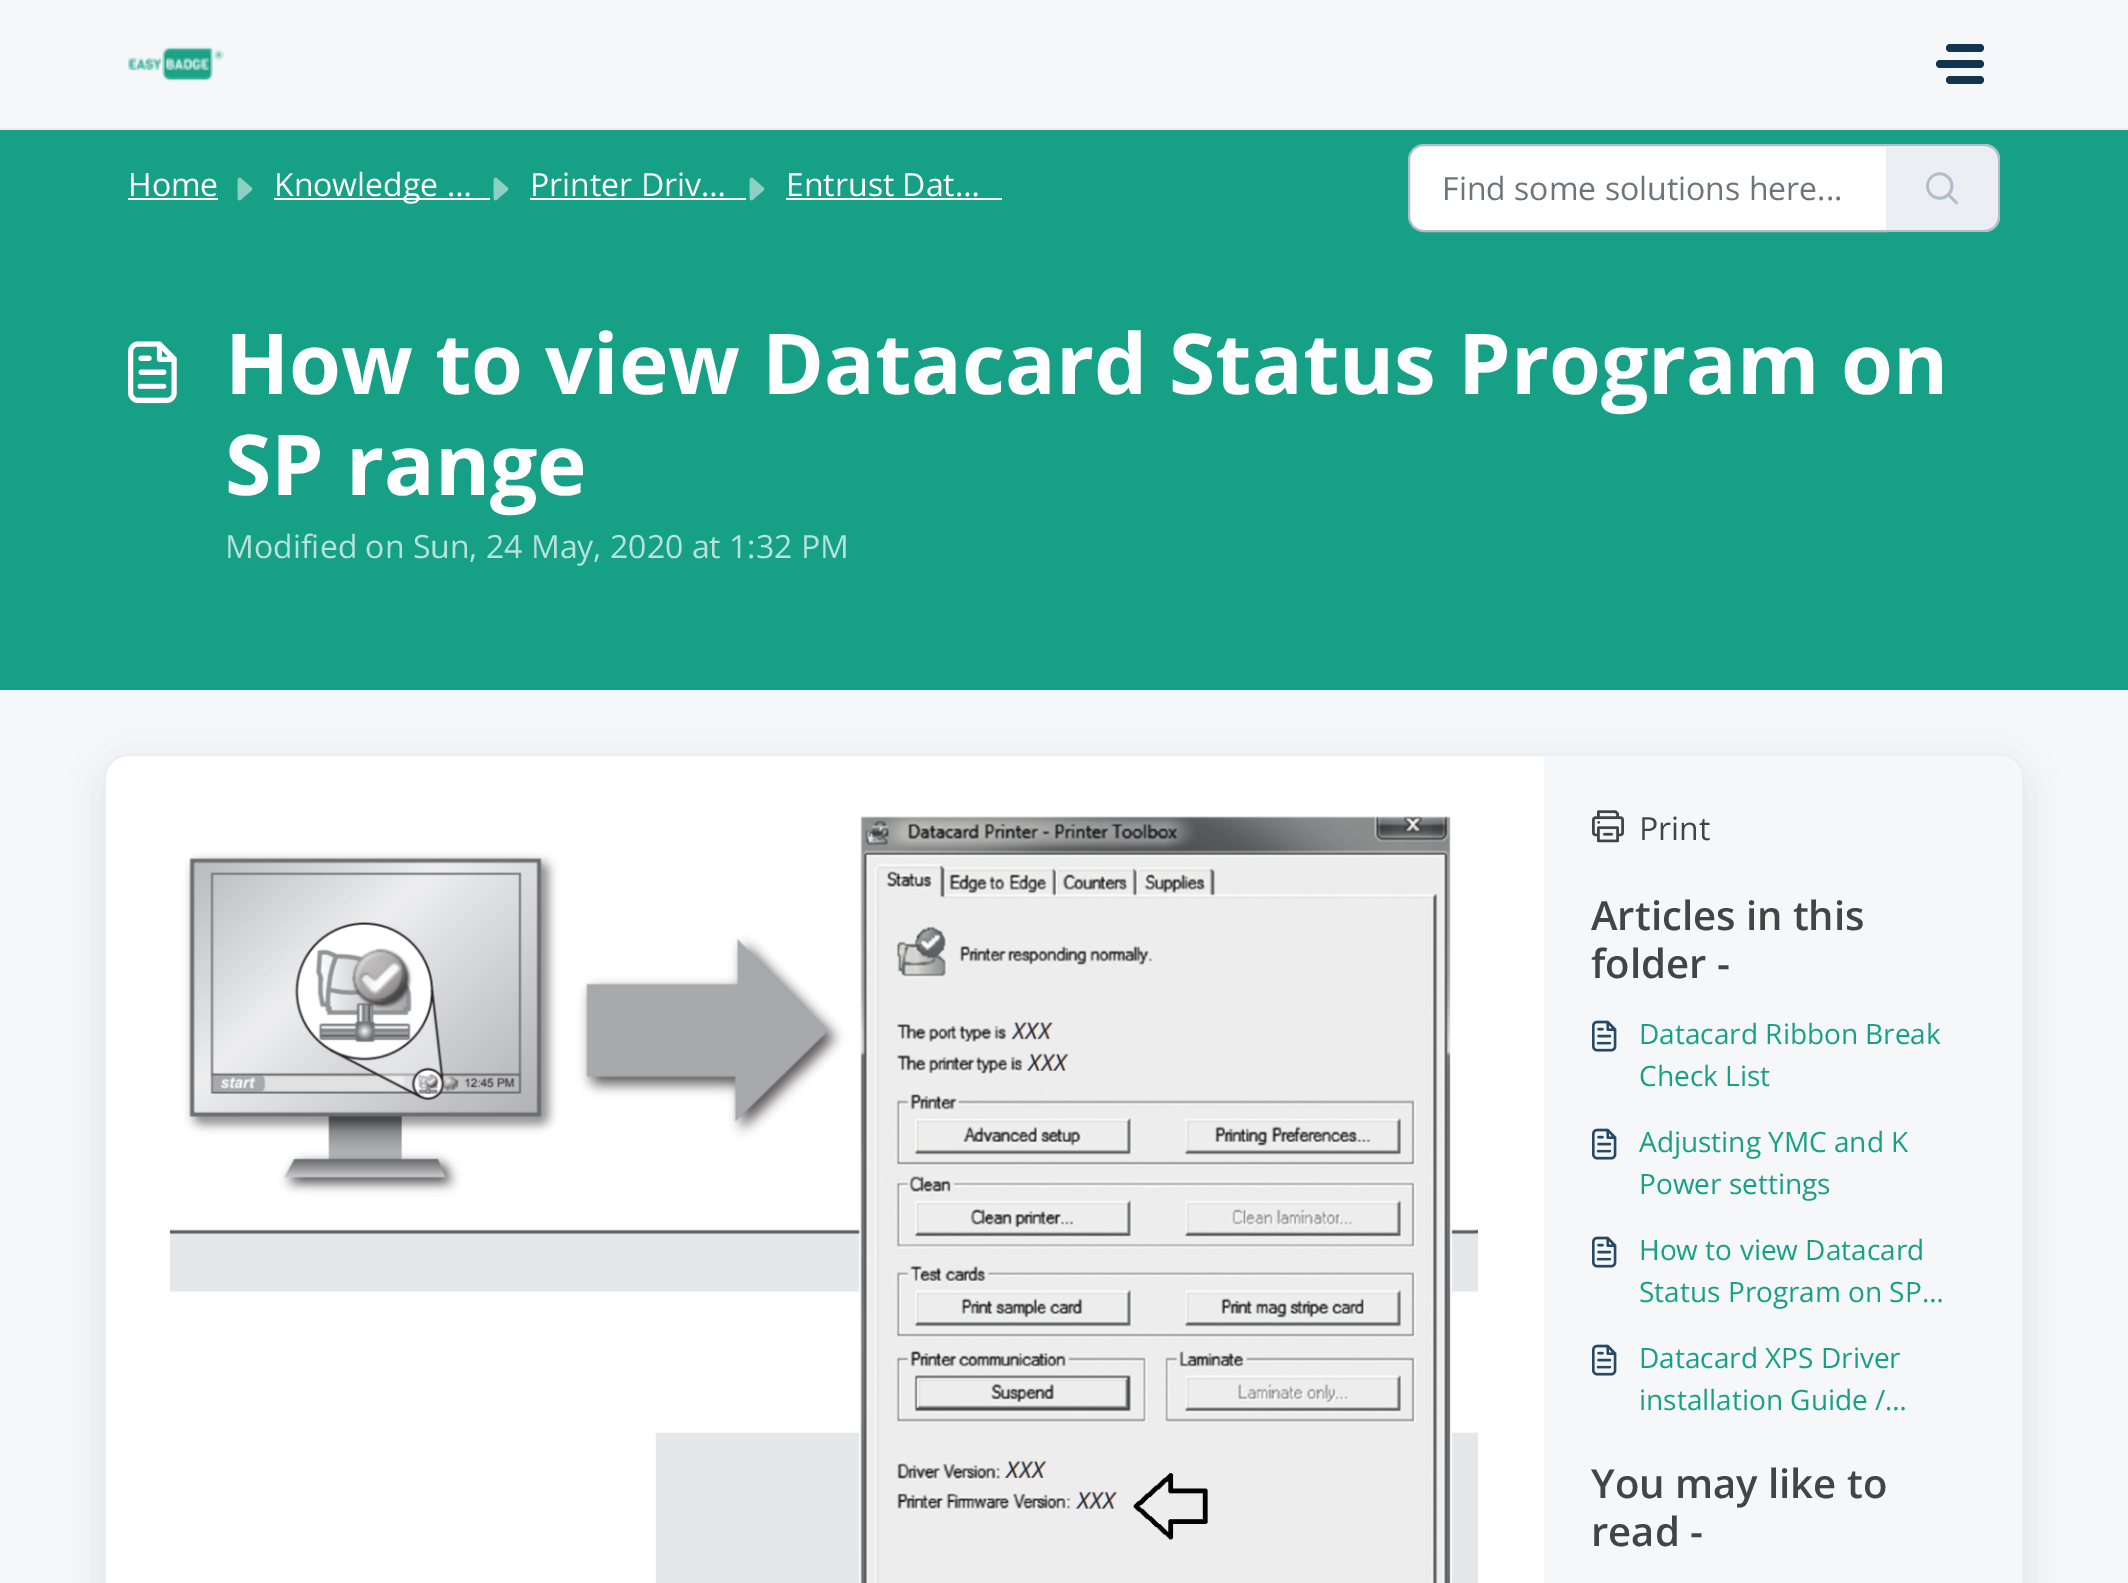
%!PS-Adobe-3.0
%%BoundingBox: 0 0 2128 1583
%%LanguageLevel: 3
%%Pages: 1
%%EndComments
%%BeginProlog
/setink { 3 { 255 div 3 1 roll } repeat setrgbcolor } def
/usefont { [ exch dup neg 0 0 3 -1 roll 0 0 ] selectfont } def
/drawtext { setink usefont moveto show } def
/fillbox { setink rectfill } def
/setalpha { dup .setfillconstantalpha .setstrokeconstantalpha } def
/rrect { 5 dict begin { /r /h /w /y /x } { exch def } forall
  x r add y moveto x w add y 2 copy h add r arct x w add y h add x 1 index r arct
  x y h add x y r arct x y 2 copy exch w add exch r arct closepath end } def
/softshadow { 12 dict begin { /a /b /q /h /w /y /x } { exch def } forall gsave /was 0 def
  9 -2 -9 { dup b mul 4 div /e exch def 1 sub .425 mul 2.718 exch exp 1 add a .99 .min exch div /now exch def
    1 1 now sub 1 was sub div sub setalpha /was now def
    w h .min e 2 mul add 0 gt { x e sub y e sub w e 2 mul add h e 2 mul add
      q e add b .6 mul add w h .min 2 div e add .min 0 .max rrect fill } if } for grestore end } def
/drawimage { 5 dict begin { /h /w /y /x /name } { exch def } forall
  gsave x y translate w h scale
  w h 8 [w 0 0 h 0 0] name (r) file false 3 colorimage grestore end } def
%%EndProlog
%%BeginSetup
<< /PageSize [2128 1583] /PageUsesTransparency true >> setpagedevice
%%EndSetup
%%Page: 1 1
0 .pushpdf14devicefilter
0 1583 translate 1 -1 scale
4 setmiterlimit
0 0 2128 1583 245 247 249 fillbox
0 128 2128 2 235 239 243 fillbox
(assets/img1.rgb) 128 46 96 36 drawimage
18 52 77 setink
1946 44 38 8 4 rrect fill
1936 60 48 8 4 rrect fill
1946 76 38 8 4 rrect fill
0 130 2128 560 22 160 133 fillbox
(Home) 128 196 /OpenSans-Regular 32 255 255 255 drawtext
128 198 90 2 255 255 255 fillbox
(assets/img2.rgb) 237 177 16 24 drawimage
274 198 216 2 255 255 255 fillbox
(Knowledge …) 274 196 /OpenSans-Regular 32 255 255 255 drawtext
(assets/img2.rgb) 493 177 16 24 drawimage
(Printer Driv…) 530 196 /OpenSans-Regular 32 255 255 255 drawtext
530 198 216 2 255 255 255 fillbox
(assets/img2.rgb) 749 177 16 24 drawimage
(Entrust Dat…) 786 196 /OpenSans-Regular 32 255 255 255 drawtext
786 198 216 2 255 255 255 fillbox
1424 145 moveto 1887 145 lineto 1887 231 lineto 1424 231 lineto 1415.5 231 1409 224.5 1409 216 curveto 1409 160 lineto 1409 151.5 1415.5 145 1424 145 curveto closepath gsave fill grestore
177 189 200 setink
2 setlinewidth
stroke
(Find some solutions here...) 1442 200 /OpenSans-Regular 32 108 117 125 drawtext
235 239 243 setink
1886 144 moveto 1984 144 lineto 1993 144 2000 151 2000 160 curveto 2000 216 lineto 2000 225 1993 232 1984 232 curveto 1886 232 lineto closepath fill
177 189 200 setink
1886 144 moveto 1984 144 lineto 1993 144 2000 151 2000 160 curveto 2000 216 lineto 2000 225 1993 232 1984 232 curveto 1886 232 lineto closepath 1886 146 moveto 1984 146 lineto 1992 146 1998 152 1998 160 curveto 1998 216 lineto 1998 224 1992 230 1984 230 curveto 1886 230 lineto closepath eofill
(assets/img3.rgb) 1926 172 32 33 drawimage
(assets/img4.rgb) 128 341 49 63 drawimage
(How to view Datacard Status Program on) 225 394 /OpenSans-Bold 84 255 255 255 drawtext
(SP range) 225 495 /OpenSans-Bold 84 255 255 255 drawtext
(Modified on Sun, 24 May, 2020 at 1:32 PM) 225 558 /OpenSans-Regular 32 185 227 218 drawtext
39 49 58 setink
104 766 1920 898 24 19 0.1 softshadow
255 255 255 setink
105 755 1918 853 23 rrect gsave fill grestore
235 239 243 setink
stroke
(assets/img5.rgb) 170 816 1308 767 drawimage
245 247 249 setink
1544 756 moveto 1998 756 lineto 2011.5 756 2022 766.5 2022 780 curveto 2022 1583 lineto 2022 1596.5 2011.5 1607 1998 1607 curveto 1544 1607 lineto closepath fill
(assets/img6.rgb) 1592 810 32 33 drawimage
(Print) 1639 840 /OpenSans-Regular 32 68 68 68 drawtext
(Articles in this) 1591 930 /OpenSans-SemiBold 40 68 68 68 drawtext
(folder -) 1591 978 /OpenSans-SemiBold 40 68 68 68 drawtext
(assets/img7.rgb) 1592 1020 25 32 drawimage
(Datacard Ribbon Break) 1639 1044 /OpenSans-Regular 28 22 160 133 drawtext
(Check List) 1639 1086 /OpenSans-Regular 28 22 160 133 drawtext
(assets/img7.rgb) 1592 1128 25 32 drawimage
(Adjusting YMC and K) 1639 1152 /OpenSans-Regular 28 22 160 133 drawtext
(Power settings) 1639 1194 /OpenSans-Regular 28 22 160 133 drawtext
(assets/img7.rgb) 1592 1236 25 32 drawimage
(How to view Datacard) 1639 1260 /OpenSans-Regular 28 22 160 133 drawtext
(Status Program on SP…) 1639 1302 /OpenSans-Regular 28 22 160 133 drawtext
(assets/img7.rgb) 1592 1344 25 32 drawimage
(Datacard XPS Driver) 1639 1368 /OpenSans-Regular 28 22 160 133 drawtext
(installation Guide /…) 1639 1410 /OpenSans-Regular 28 22 160 133 drawtext
(You may like to) 1591 1498 /OpenSans-SemiBold 40 68 68 68 drawtext
(read -) 1591 1546 /OpenSans-SemiBold 40 68 68 68 drawtext
.poppdf14devicefilter showpage
%%EOF
